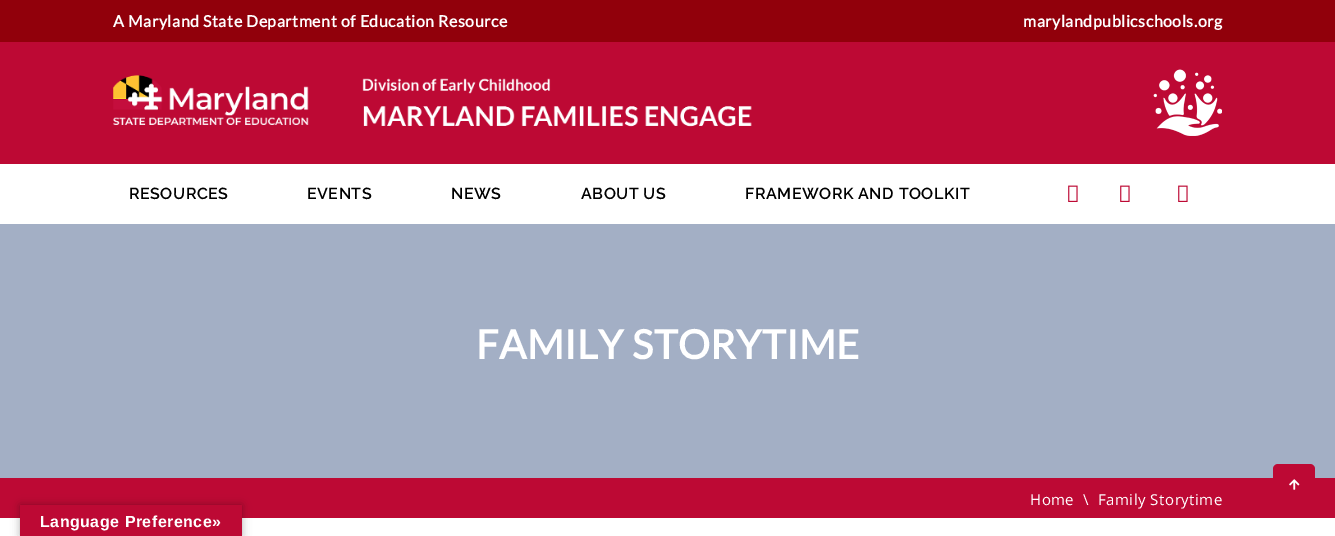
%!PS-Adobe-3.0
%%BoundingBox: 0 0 1335 536
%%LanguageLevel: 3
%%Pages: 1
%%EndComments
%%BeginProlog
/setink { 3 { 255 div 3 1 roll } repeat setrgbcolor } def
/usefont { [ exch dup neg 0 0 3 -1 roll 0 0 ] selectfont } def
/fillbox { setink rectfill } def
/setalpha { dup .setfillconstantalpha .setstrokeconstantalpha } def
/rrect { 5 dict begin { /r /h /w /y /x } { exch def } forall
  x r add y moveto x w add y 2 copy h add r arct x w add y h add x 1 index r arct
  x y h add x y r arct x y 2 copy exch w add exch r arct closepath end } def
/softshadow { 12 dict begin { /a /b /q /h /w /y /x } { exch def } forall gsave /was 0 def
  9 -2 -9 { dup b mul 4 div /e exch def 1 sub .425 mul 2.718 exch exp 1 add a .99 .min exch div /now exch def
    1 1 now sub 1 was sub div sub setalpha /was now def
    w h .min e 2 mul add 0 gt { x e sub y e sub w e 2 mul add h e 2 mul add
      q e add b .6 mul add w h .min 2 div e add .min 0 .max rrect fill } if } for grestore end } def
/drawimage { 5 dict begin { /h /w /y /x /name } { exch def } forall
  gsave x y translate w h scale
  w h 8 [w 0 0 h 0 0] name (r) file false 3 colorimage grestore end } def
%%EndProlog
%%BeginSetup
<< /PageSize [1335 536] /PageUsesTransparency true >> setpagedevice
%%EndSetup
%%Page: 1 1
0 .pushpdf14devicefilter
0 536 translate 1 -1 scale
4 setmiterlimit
0 0 1335 536 255 255 255 fillbox
0 0 1335 42 145 0 11 fillbox
/Lato-Bold 16 usefont
255 255 255 setink
113 27 moveto 0.5 0 (A Maryland State Department of Education Resource) ashow
1023 27 moveto 0.5 0 (marylandpublicschools.org) ashow
0 42 1335 122 189 9 52 fillbox
(assets/img1.rgb) 113 75 639 52 drawimage
(assets/img2.rgb) 1153 69 69 67 drawimage
/Raleway-SemiBold 16 usefont
0 0 0 setink
129 199 moveto 0.5 0 (RESOURCES) ashow
307 199 moveto 0.5 0 (EVENTS) ashow
451 199 moveto 0.5 0 (NEWS) ashow
581 199 moveto 0.5 0 (ABOUT US) ashow
745 199 moveto 0.5 0 (FRAMEWORK AND TOOLKIT) ashow
(assets/img3.rgb) 1068 185 10 17 drawimage
(assets/img3.rgb) 1120 185 10 17 drawimage
(assets/img3.rgb) 1178 185 10 17 drawimage
0 224 1335 254 163 175 197 fillbox
/Lato-Bold 40 usefont
255 255 255 setink
476 359 moveto 0.5 0 (FAMILY STORYTIME) ashow
0 478 1335 40 189 9 52 fillbox
/OpenSans-Regular 15 usefont
255 255 255 setink
1030 505 moveto 0.5 0 (Home) ashow
1083 505 moveto 0.5 0 (\\) ashow
1098 505 moveto 0.5 0 (Family Storytime) ashow
189 9 52 setink
1273 464 42 42 5 rrect fill
(assets/img4.rgb) 1289 479 11 11 drawimage
0 0 0 setink
20 505 222 31 0 4.5 0.3 softshadow
20 505 222 31 189 9 52 fillbox
/LiberationSans-Bold 16 usefont
255 255 255 setink
40 527 moveto 0.5 0 (Language Preference») ashow
.poppdf14devicefilter showpage
%%EOF
